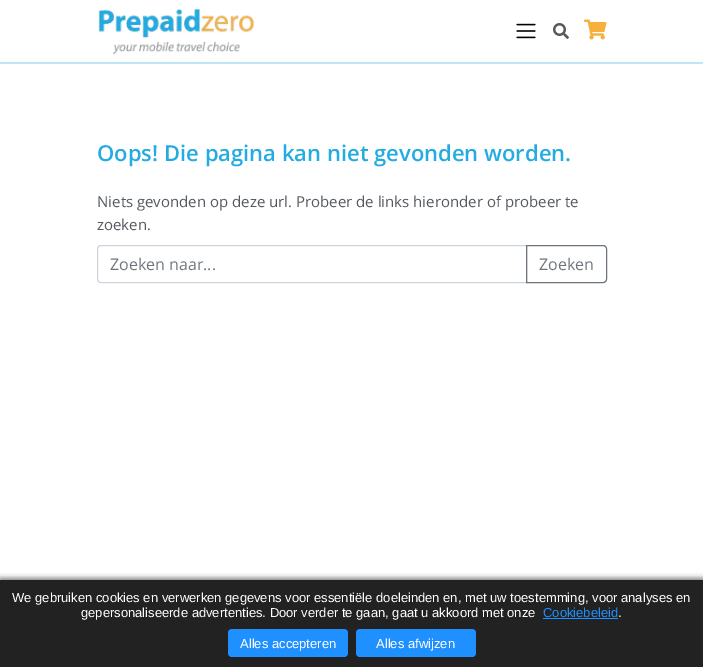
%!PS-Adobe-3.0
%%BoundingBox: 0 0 703 667
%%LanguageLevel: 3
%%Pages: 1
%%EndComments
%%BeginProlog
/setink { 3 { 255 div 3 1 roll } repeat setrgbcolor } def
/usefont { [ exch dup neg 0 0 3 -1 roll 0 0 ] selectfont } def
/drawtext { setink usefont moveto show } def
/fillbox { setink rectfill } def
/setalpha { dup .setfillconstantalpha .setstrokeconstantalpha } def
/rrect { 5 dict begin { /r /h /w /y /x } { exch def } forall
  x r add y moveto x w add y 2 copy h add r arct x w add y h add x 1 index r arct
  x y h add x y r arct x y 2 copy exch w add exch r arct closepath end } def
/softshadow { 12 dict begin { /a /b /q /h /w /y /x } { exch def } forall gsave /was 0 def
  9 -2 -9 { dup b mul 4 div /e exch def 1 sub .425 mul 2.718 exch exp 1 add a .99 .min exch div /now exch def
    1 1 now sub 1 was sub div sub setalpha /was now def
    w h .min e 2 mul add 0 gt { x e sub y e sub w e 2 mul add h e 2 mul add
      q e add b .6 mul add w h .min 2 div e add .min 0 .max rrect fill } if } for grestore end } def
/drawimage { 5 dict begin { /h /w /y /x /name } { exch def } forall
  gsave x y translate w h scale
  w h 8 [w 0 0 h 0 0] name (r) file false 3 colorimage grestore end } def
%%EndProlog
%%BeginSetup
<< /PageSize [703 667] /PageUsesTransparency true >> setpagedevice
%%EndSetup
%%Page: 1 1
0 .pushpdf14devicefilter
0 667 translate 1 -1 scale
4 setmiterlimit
0 0 703 667 255 255 255 fillbox
0 62 703 2 189 230 246 fillbox
(assets/img1.rgb) 98 9 157 45 drawimage
(assets/img2.rgb) 516 23 20 16 drawimage
(assets/img3.rgb) 553 23 16 16 drawimage
(assets/img4.rgb) 584 19 23 21 drawimage
(Oops! Die pagina kan niet gevonden worden.) 97 161 /OpenSans-SemiBold 22 35 171 226 drawtext
(Niets gevonden op deze url. Probeer de links hieronder of probeer te) 97 207 /OpenSans-Regular 15 84 89 95 drawtext
(zoeken.) 97 230 /OpenSans-Regular 15 84 89 95 drawtext
206 212 218 setink
101 245.5 moveto 526.5 245.5 lineto 526.5 282.5 lineto 101 282.5 lineto 99 282.5 97.5 281 97.5 279 curveto 97.5 249 lineto 97.5 247 99 245.5 101 245.5 curveto closepath stroke
(Zoeken naar...) 110 270 /OpenSans-Regular 16 108 117 125 drawtext
526.5 245.5 moveto 603 245.5 lineto 605 245.5 606.5 247 606.5 249 curveto 606.5 279 lineto 606.5 281 605 282.5 603 282.5 curveto 526.5 282.5 lineto closepath stroke
(Zoeken) 539 270 /OpenSans-Regular 16 108 117 125 drawtext
0 0 0 setink
0 578 703 87 0 2.5 0.5 softshadow
0 580 703 87 34 34 34 fillbox
(We gebruiken cookies en verwerken gegevens voor essentiële doeleinden en, met uw toestemming, voor analyses en) 12 602 /LiberationSans-Regular 13 255 255 255 drawtext
(gepersonaliseerde advertenties. Door verder te gaan, gaat u akkoord met onze) 81 617 /LiberationSans-Regular 13 255 255 255 drawtext
(Cookiebeleid) 543 617 /LiberationSans-Regular 13 30 144 255 drawtext
543 618 75 1 30 144 255 fillbox
(.) 618 617 /LiberationSans-Regular 13 255 255 255 drawtext
30 144 255 setink
228 629 120 28 4 rrect fill
(Alles accepteren) 240 648 /LiberationSans-Regular 13 255 255 255 drawtext
30 144 255 setink
356 629 120 28 4 rrect fill
(Alles afwijzen) 376 648 /LiberationSans-Regular 13 255 255 255 drawtext
.poppdf14devicefilter showpage
%%EOF
